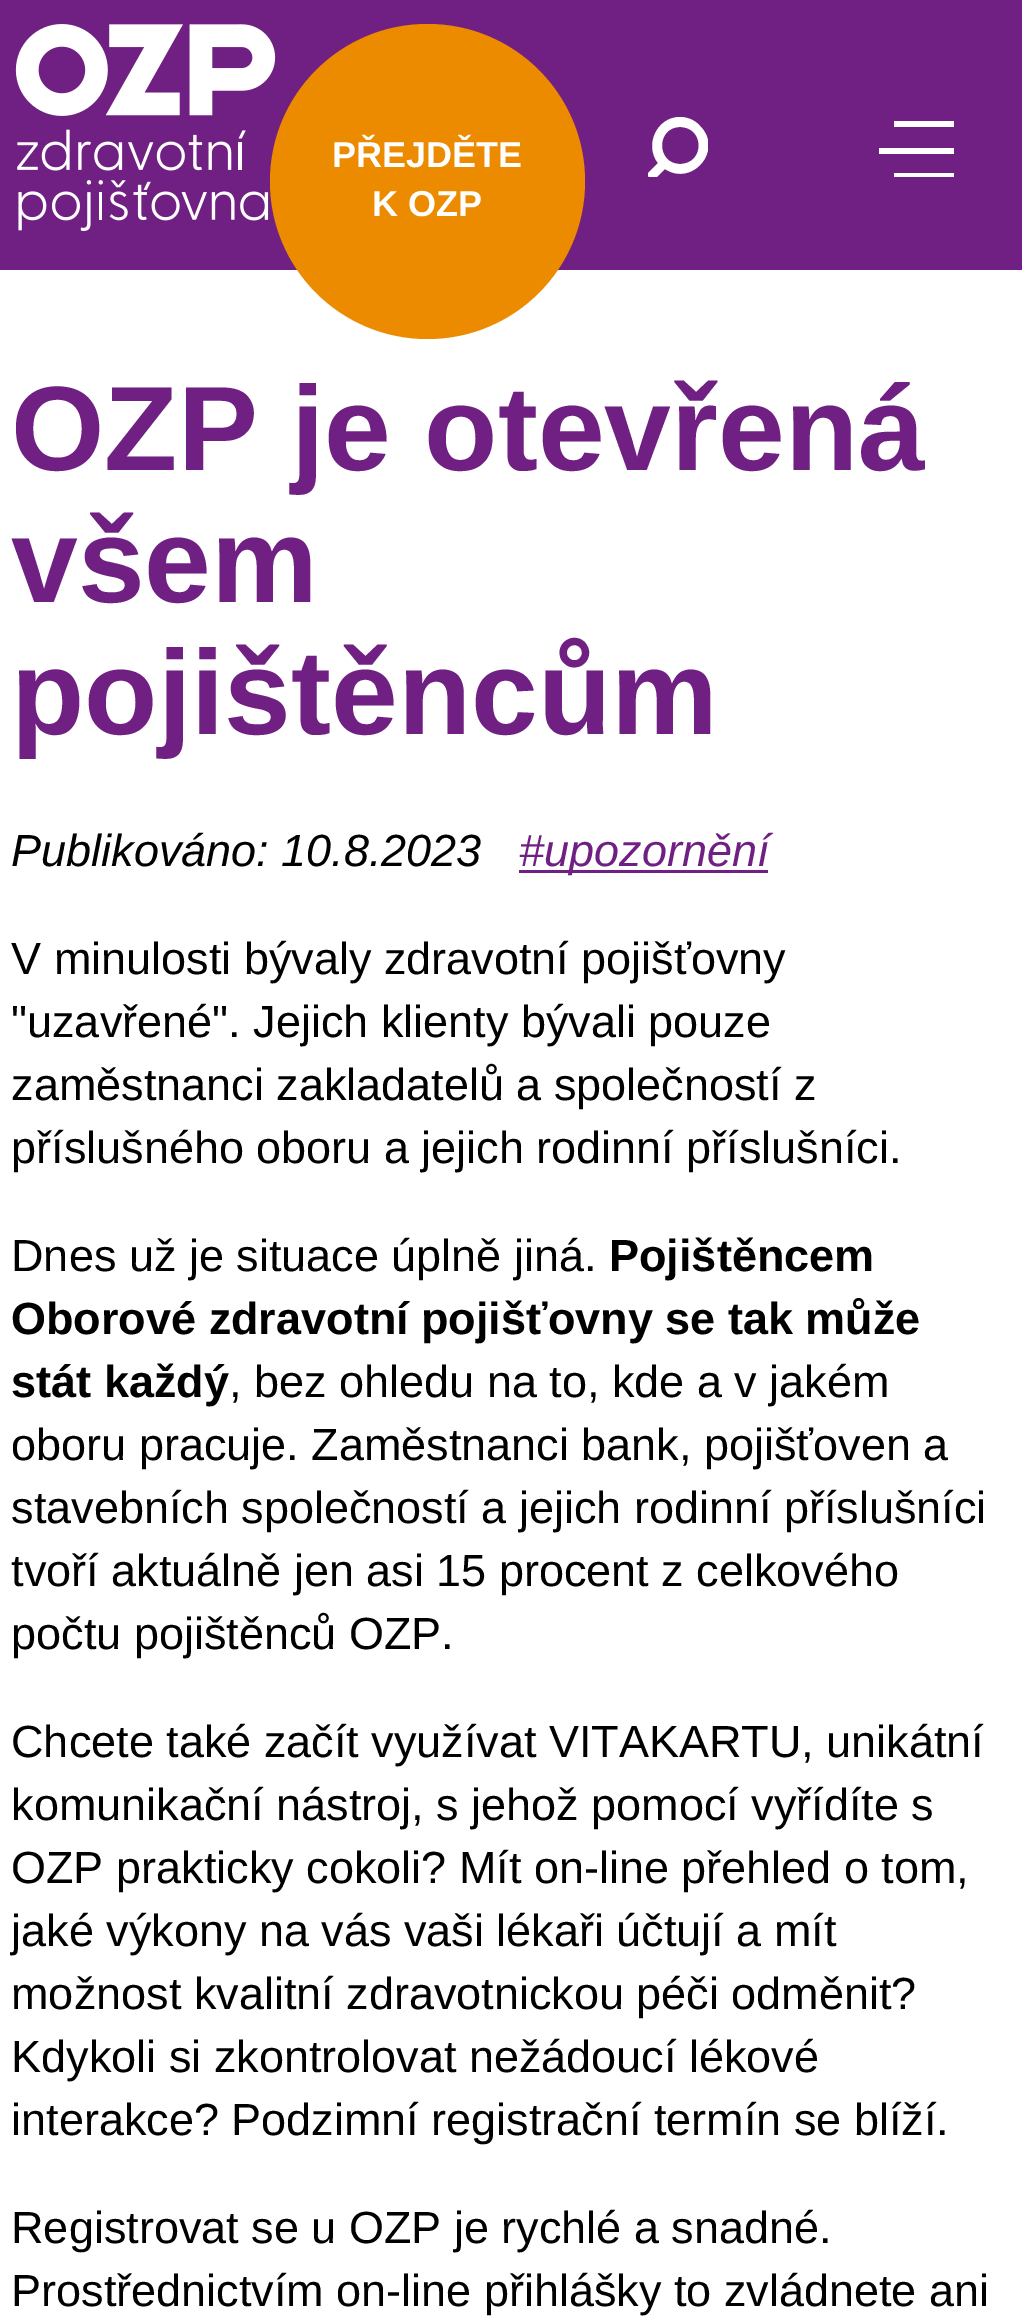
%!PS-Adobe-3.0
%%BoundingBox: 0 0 1022 2323
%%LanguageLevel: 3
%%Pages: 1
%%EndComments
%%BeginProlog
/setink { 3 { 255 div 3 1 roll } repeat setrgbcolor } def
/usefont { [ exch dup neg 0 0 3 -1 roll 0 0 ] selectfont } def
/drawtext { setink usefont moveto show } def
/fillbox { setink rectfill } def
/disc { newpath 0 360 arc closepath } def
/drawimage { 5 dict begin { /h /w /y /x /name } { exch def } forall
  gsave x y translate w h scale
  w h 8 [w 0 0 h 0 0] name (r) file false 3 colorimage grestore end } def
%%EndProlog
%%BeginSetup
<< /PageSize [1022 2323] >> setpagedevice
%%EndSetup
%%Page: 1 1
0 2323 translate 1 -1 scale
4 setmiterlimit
0 0 1022 2323 255 255 255 fillbox
0 0 1022 270 112 32 130 fillbox
(assets/img1.rgb) 15 24 261 207 drawimage
gsave
648 117 60 60 rectclip
255 255 255 setink
680 117 moveto 657 117 644 145 658 163 curveto 648 173 lineto 647 177 651 181 655 179 curveto 665 169 lineto 692 187 724 150 700 126 curveto 695 120 687 117 680 117 curveto closepath 680 164 moveto 656 164 656 127 680 127 curveto 705 127 705 164 680 164 curveto closepath fill
grestore
gsave
879 120 75 57 rectclip
255 255 255 setink
894 179 moveto 894 173 lineto 954 173 lineto 954 179 lineto closepath 879 148 moveto 954 148 lineto 954 154 lineto 879 154 lineto closepath 894 121 moveto 954 121 lineto 954 127 lineto 894 127 lineto closepath eofill
grestore
237 139 0 setink
427.5 181.5 157.5 disc fill
(PŘEJDĚTE) 332 167 /LiberationSans-Bold 36 255 255 255 drawtext
(K OZP) 372 216 /LiberationSans-Bold 36 255 255 255 drawtext
(OZP je otevřená) 11 470 /LiberationSans-Bold 120 112 32 130 drawtext
(všem) 11 602 /LiberationSans-Bold 120 112 32 130 drawtext
(pojištěncům) 11 734 /LiberationSans-Bold 120 112 32 130 drawtext
(Publikováno: 10.8.2023) 11 866 /LiberationSans-Italic 45 0 0 0 drawtext
519 870 249 3 112 32 130 fillbox
(#upozornění) 519 866 /LiberationSans-Italic 45 112 32 130 drawtext
(V minulosti bývaly zdravotní pojišťovny) 11 974 /LiberationSans-Regular 45 0 0 0 drawtext
("uzavřené". Jejich klienty bývali pouze) 11 1037 /LiberationSans-Regular 45 0 0 0 drawtext
(zaměstnanci zakladatelů a společností z) 11 1100 /LiberationSans-Regular 45 0 0 0 drawtext
(příslušného oboru a jejich rodinní příslušníci.) 11 1163 /LiberationSans-Regular 45 0 0 0 drawtext
(Dnes už je situace úplně jiná.) 11 1271 /LiberationSans-Regular 45 0 0 0 drawtext
(Pojištěncem) 609 1271 /LiberationSans-Bold 45 0 0 0 drawtext
(Oborové zdravotní pojišťovny se tak může) 11 1334 /LiberationSans-Bold 45 0 0 0 drawtext
(stát každý) 11 1397 /LiberationSans-Bold 45 0 0 0 drawtext
(, bez ohledu na to, kde a v jakém) 229 1397 /LiberationSans-Regular 45 0 0 0 drawtext
(oboru pracuje. Zaměstnanci bank, pojišťoven a) 11 1460 /LiberationSans-Regular 45 0 0 0 drawtext
(stavebních společností a jejich rodinní příslušníci) 11 1523 /LiberationSans-Regular 45 0 0 0 drawtext
(tvoří aktuálně jen asi 15 procent z celkového) 11 1586 /LiberationSans-Regular 45 0 0 0 drawtext
(počtu pojištěnců OZP.) 11 1649 /LiberationSans-Regular 45 0 0 0 drawtext
(Chcete také začít využívat VITAKARTU, unikátní) 11 1757 /LiberationSans-Regular 45 0 0 0 drawtext
(komunikační nástroj, s jehož pomocí vyřídíte s) 11 1820 /LiberationSans-Regular 45 0 0 0 drawtext
(OZP prakticky cokoli? Mít on-line přehled o tom,) 11 1883 /LiberationSans-Regular 45 0 0 0 drawtext
(jaké výkony na vás vaši lékaři účtují a mít) 11 1946 /LiberationSans-Regular 45 0 0 0 drawtext
(možnost kvalitní zdravotnickou péči odměnit?) 11 2009 /LiberationSans-Regular 45 0 0 0 drawtext
(Kdykoli si zkontrolovat nežádoucí lékové) 11 2072 /LiberationSans-Regular 45 0 0 0 drawtext
(interakce? Podzimní registrační termín se blíží.) 11 2135 /LiberationSans-Regular 45 0 0 0 drawtext
(Registrovat se u OZP je rychlé a snadné.) 11 2243 /LiberationSans-Regular 45 0 0 0 drawtext
(Prostřednictvím on-line přihlášky to zvládnete ani) 11 2306 /LiberationSans-Regular 45 0 0 0 drawtext
showpage
%%EOF
